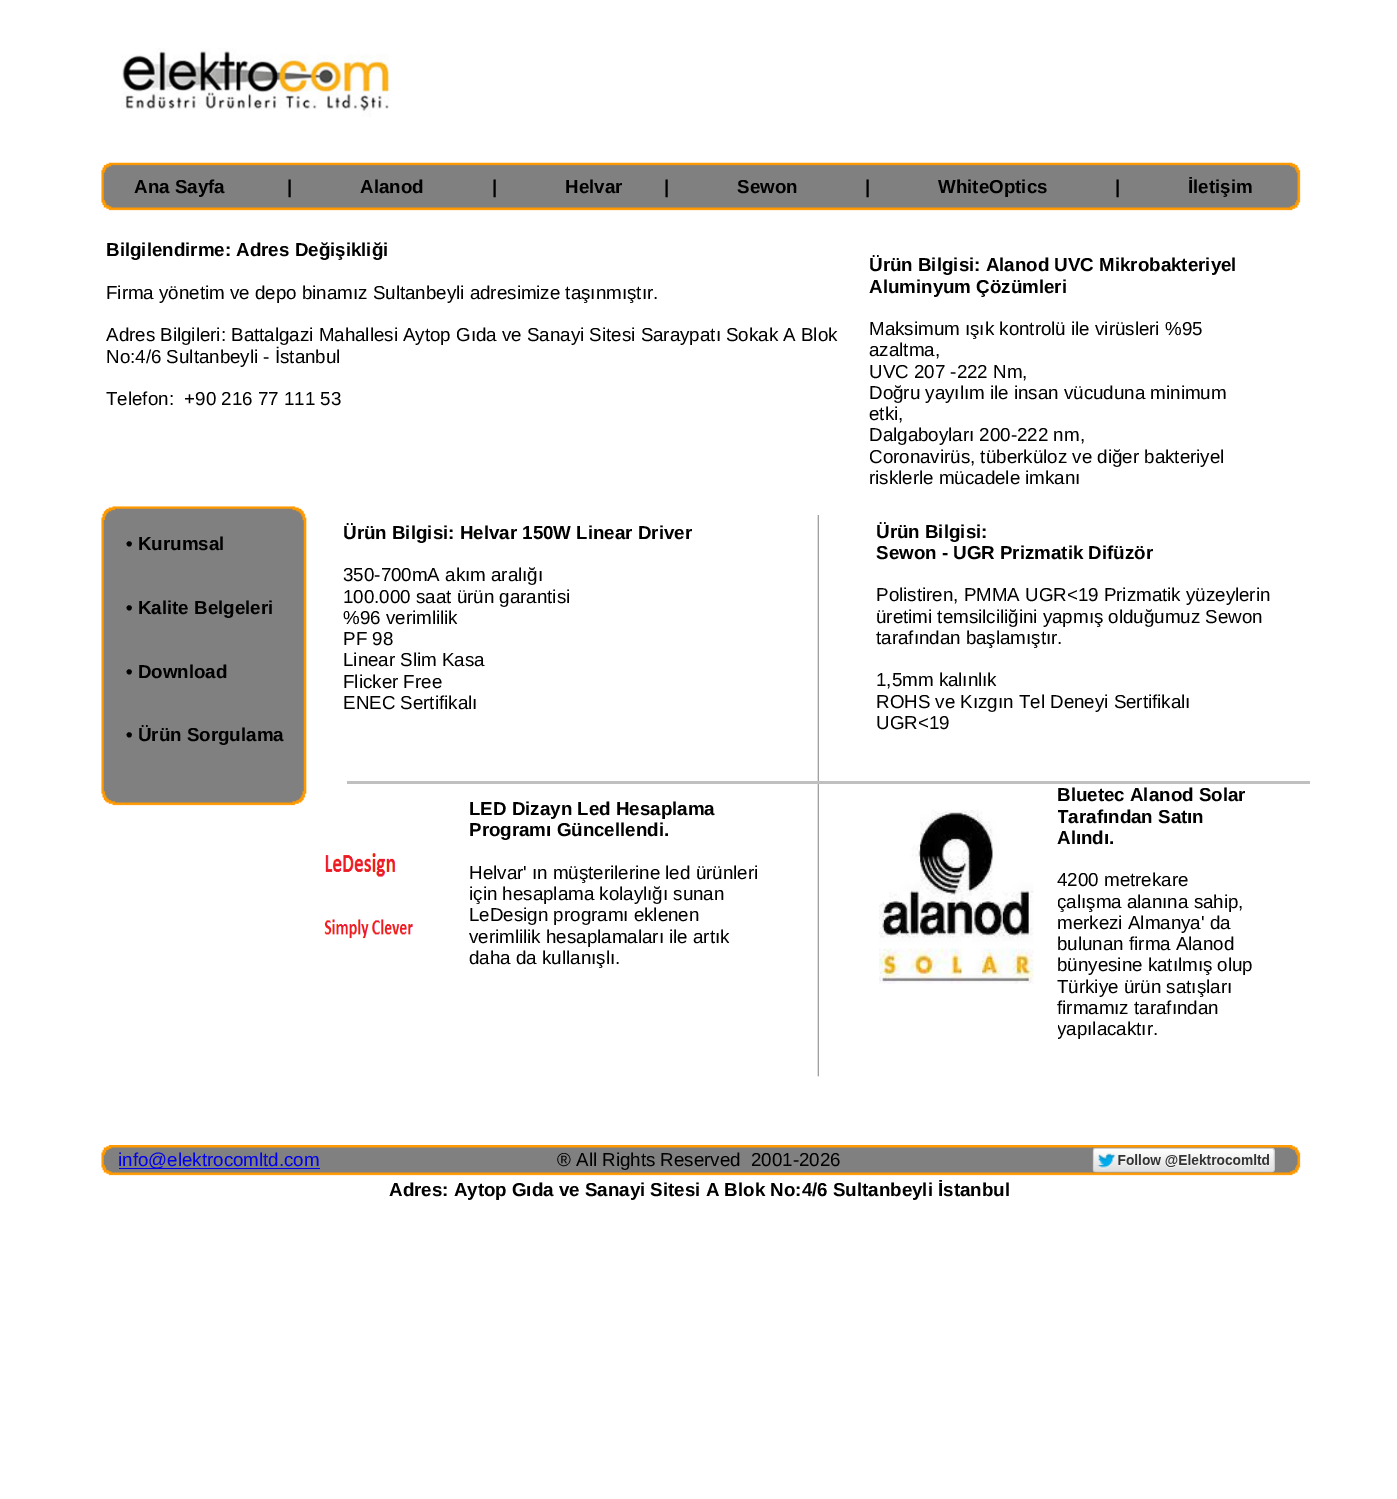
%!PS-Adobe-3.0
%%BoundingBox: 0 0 1397 1499
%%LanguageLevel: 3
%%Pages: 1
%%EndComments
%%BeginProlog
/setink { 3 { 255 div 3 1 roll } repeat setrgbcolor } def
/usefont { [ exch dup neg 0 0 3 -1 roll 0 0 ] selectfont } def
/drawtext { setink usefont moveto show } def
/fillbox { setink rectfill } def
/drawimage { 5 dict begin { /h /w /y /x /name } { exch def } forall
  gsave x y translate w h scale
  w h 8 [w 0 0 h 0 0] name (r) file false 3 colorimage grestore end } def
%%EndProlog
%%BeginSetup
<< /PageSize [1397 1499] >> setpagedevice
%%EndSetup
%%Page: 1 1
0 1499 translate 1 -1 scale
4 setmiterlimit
0 0 1397 1499 255 255 255 fillbox
(assets/img1.rgb) 121 48 269 69 drawimage
(assets/img2.rgb) 101 162 1200 49 drawimage
(Ana Sayfa) 134 193 /LiberationSans-Bold 18.75 0 0 0 drawtext
(|) 287 193 /LiberationSans-Bold 18.75 0 0 0 drawtext
(Alanod) 360 193 /LiberationSans-Bold 18.75 0 0 0 drawtext
(|) 492 193 /LiberationSans-Bold 18.75 0 0 0 drawtext
(Helvar) 565 193 /LiberationSans-Bold 18.75 0 0 0 drawtext
(|) 664 193 /LiberationSans-Bold 18.75 0 0 0 drawtext
(Sewon) 737 193 /LiberationSans-Bold 18.75 0 0 0 drawtext
(|) 865 193 /LiberationSans-Bold 18.75 0 0 0 drawtext
(WhiteOptics) 938 193 /LiberationSans-Bold 18.75 0 0 0 drawtext
(|) 1115 193 /LiberationSans-Bold 18.75 0 0 0 drawtext
(İletişim) 1188 193 /LiberationSans-Bold 18.75 0 0 0 drawtext
(Bilgilendirme: Adres Değişikliği) 106 256 /LiberationSans-Bold 18.75 0 0 0 drawtext
(Firma yönetim ve depo binamız Sultanbeyli adresimize taşınmıştır.) 106 299 /LiberationSans-Regular 18.75 0 0 0 drawtext
(Adres Bilgileri: Battalgazi Mahallesi Aytop Gıda ve Sanayi Sitesi Saraypatı Sokak A Blok) 106 341 /LiberationSans-Regular 18.75 0 0 0 drawtext
(No:4/6 Sultanbeyli - İstanbul) 106 363 /LiberationSans-Regular 18.75 0 0 0 drawtext
(Telefon:  +90 216 77 111 53) 106 405 /LiberationSans-Regular 18.75 0 0 0 drawtext
(Ürün Bilgisi: Alanod UVC Mikrobakteriyel) 869 271 /LiberationSans-Bold 18.75 0 0 0 drawtext
(Aluminyum Çözümleri) 869 293 /LiberationSans-Bold 18.75 0 0 0 drawtext
(Maksimum ışık kontrolü ile virüsleri %95) 869 335 /LiberationSans-Regular 18.75 0 0 0 drawtext
(azaltma,) 869 356 /LiberationSans-Regular 18.75 0 0 0 drawtext
(UVC 207 -222 Nm,) 869 378 /LiberationSans-Regular 18.75 0 0 0 drawtext
(Doğru yayılım ile insan vücuduna minimum) 869 399 /LiberationSans-Regular 18.75 0 0 0 drawtext
(etki,) 869 420 /LiberationSans-Regular 18.75 0 0 0 drawtext
(Dalgaboyları 200-222 nm,) 869 441 /LiberationSans-Regular 18.75 0 0 0 drawtext
(Coronavirüs, tüberküloz ve diğer bakteriyel) 869 463 /LiberationSans-Regular 18.75 0 0 0 drawtext
(risklerle mücadele imkanı) 869 484 /LiberationSans-Regular 18.75 0 0 0 drawtext
(assets/img3.rgb) 101 506 206 300 drawimage
(Ürün Bilgisi: Helvar 150W Linear Driver) 343 539 /LiberationSans-Bold 18.75 0 0 0 drawtext
(350-700mA akım aralığı) 343 581 /LiberationSans-Regular 18.75 0 0 0 drawtext
(100.000 saat ürün garantisi) 343 603 /LiberationSans-Regular 18.75 0 0 0 drawtext
(%96 verimlilik) 343 624 /LiberationSans-Regular 18.75 0 0 0 drawtext
(PF 98) 343 645 /LiberationSans-Regular 18.75 0 0 0 drawtext
(Linear Slim Kasa) 343 666 /LiberationSans-Regular 18.75 0 0 0 drawtext
(Flicker Free) 343 688 /LiberationSans-Regular 18.75 0 0 0 drawtext
(ENEC Sertifikalı) 343 709 /LiberationSans-Regular 18.75 0 0 0 drawtext
(assets/img4.rgb) 817 515 2 562 drawimage
(Ürün Bilgisi:) 876 538 /LiberationSans-Bold 18.75 0 0 0 drawtext
(Sewon - UGR Prizmatik Difüzör) 876 559 /LiberationSans-Bold 18.75 0 0 0 drawtext
(Polistiren, PMMA UGR<19 Prizmatik yüzeylerin) 876 601 /LiberationSans-Regular 18.75 0 0 0 drawtext
(üretimi temsilciliğini yapmış olduğumuz Sewon) 876 623 /LiberationSans-Regular 18.75 0 0 0 drawtext
(tarafından başlamıştır.) 876 644 /LiberationSans-Regular 18.75 0 0 0 drawtext
(1,5mm kalınlık) 876 686 /LiberationSans-Regular 18.75 0 0 0 drawtext
(ROHS ve Kızgın Tel Deneyi Sertifikalı) 876 708 /LiberationSans-Regular 18.75 0 0 0 drawtext
(UGR<19) 876 729 /LiberationSans-Regular 18.75 0 0 0 drawtext
(• Kurumsal) 126 550 /LiberationSans-Bold 18.75 0 0 0 drawtext
(• Kalite Belgeleri) 126 614 /LiberationSans-Bold 18.75 0 0 0 drawtext
(• Download) 126 678 /LiberationSans-Bold 18.75 0 0 0 drawtext
(• Ürün Sorgulama) 126 741 /LiberationSans-Bold 18.75 0 0 0 drawtext
347 781 963 3 192 192 192 fillbox
(assets/img5.rgb) 324 853 89 86 drawimage
(LED Dizayn Led Hesaplama) 469 815 /LiberationSans-Bold 18.75 0 0 0 drawtext
(Programı Güncellendi.) 469 836 /LiberationSans-Bold 18.75 0 0 0 drawtext
(Helvar' ın müşterilerine led ürünleri) 469 879 /LiberationSans-Regular 18.75 0 0 0 drawtext
(için hesaplama kolaylığı sunan) 469 900 /LiberationSans-Regular 18.75 0 0 0 drawtext
(LeDesign programı eklenen) 469 921 /LiberationSans-Regular 18.75 0 0 0 drawtext
(verimlilik hesaplamaları ile artık) 469 943 /LiberationSans-Regular 18.75 0 0 0 drawtext
(daha da kullanışlı.) 469 964 /LiberationSans-Regular 18.75 0 0 0 drawtext
(assets/img6.rgb) 879 810 155 174 drawimage
(Bluetec Alanod Solar) 1057 801 /LiberationSans-Bold 18.75 0 0 0 drawtext
gsave
1058 784 196 314 rectclip
(Tarafından Satın) 1057 823 /LiberationSans-Bold 18.75 0 0 0 drawtext
grestore
(Alındı.) 1057 844 /LiberationSans-Bold 18.75 0 0 0 drawtext
(4200 metrekare) 1057 886 /LiberationSans-Regular 18.75 0 0 0 drawtext
gsave
1058 784 196 314 rectclip
(çalışma alanına sahip,) 1057 908 /LiberationSans-Regular 18.75 0 0 0 drawtext
grestore
(merkezi Almanya' da) 1057 929 /LiberationSans-Regular 18.75 0 0 0 drawtext
(bulunan firma Alanod) 1057 950 /LiberationSans-Regular 18.75 0 0 0 drawtext
(bünyesine katılmış olup) 1057 971 /LiberationSans-Regular 18.75 0 0 0 drawtext
(Türkiye ürün satışları) 1057 993 /LiberationSans-Regular 18.75 0 0 0 drawtext
(firmamız tarafından) 1057 1014 /LiberationSans-Regular 18.75 0 0 0 drawtext
gsave
1058 784 196 314 rectclip
(yapılacaktır.) 1057 1035 /LiberationSans-Regular 18.75 0 0 0 drawtext
grestore
(assets/img7.rgb) 101 1145 1200 31 drawimage
119 1168 201 1 0 0 238 fillbox
(info@elektrocomltd.com) 118 1166 /LiberationSans-Regular 18.75 0 0 238 drawtext
(® All Rights Reserved  2001-2026) 557 1166 /LiberationSans-Regular 18.75 0 0 0 drawtext
(assets/img8.rgb) 1092 1147 183 26 drawimage
(Adres: Aytop Gıda ve Sanayi Sitesi A Blok No:4/6 Sultanbeyli İstanbul) 389 1196 /LiberationSans-Bold 18.75 0 0 0 drawtext
showpage
%%EOF
